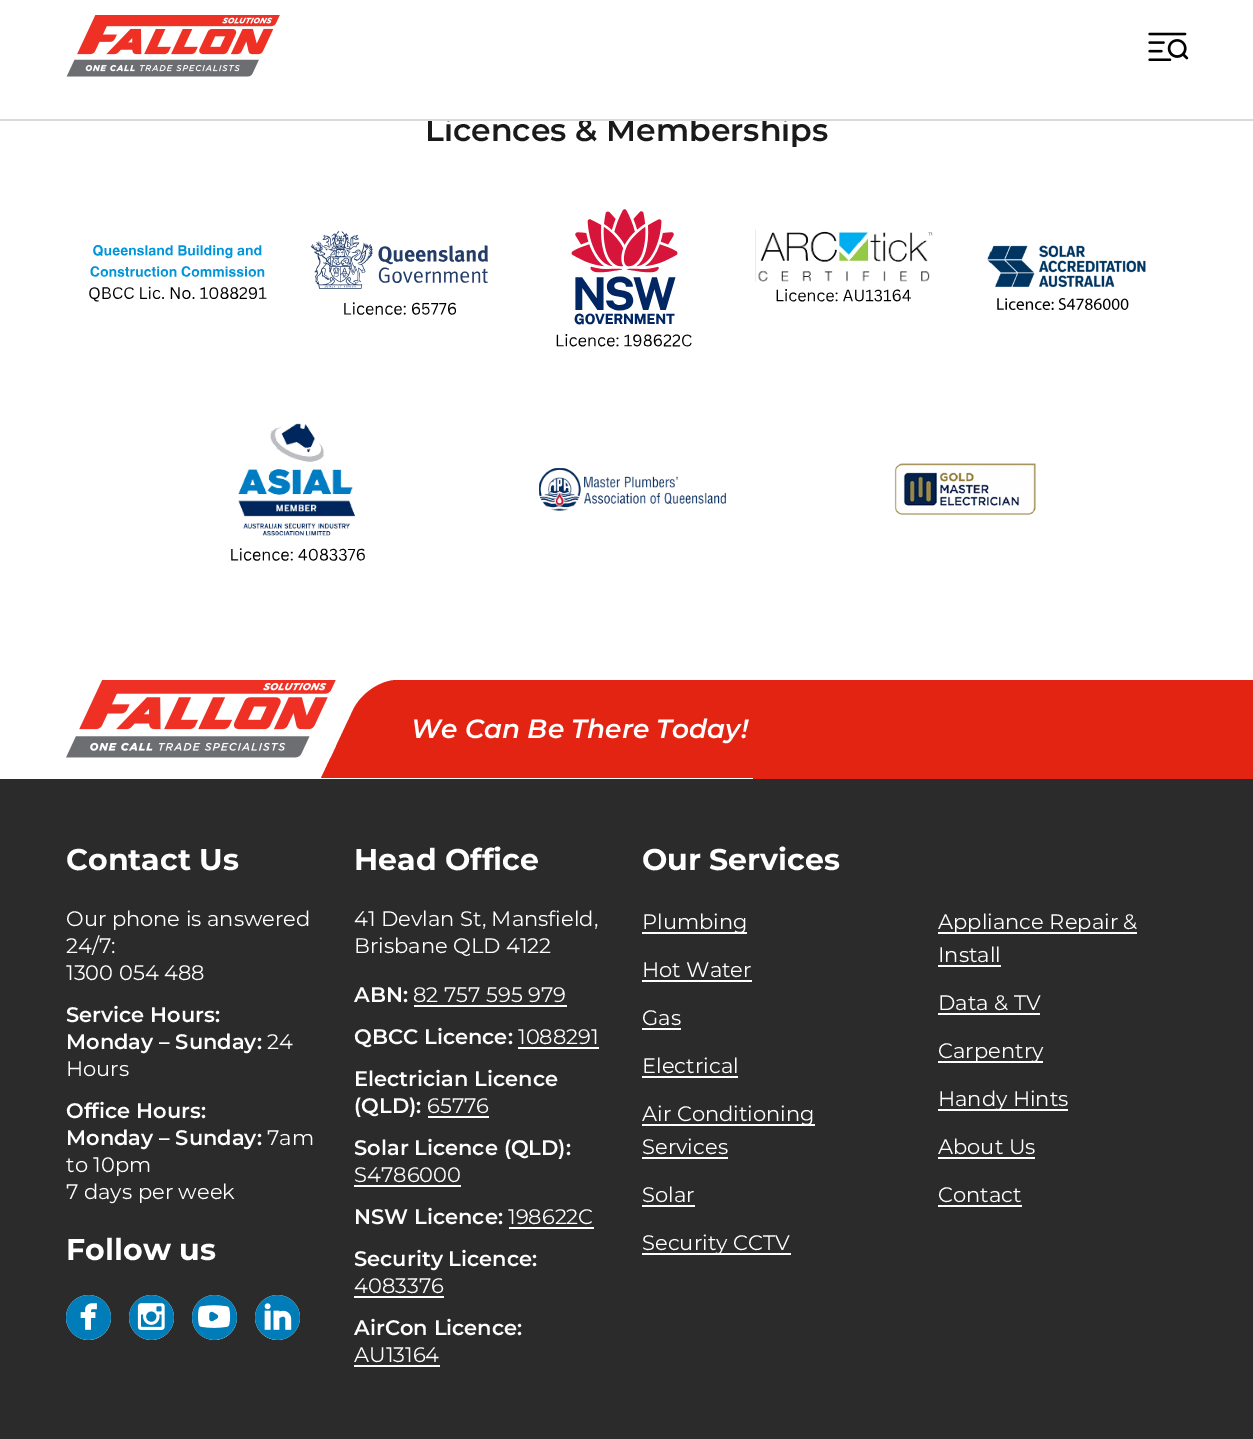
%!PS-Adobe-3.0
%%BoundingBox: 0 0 1253 1439
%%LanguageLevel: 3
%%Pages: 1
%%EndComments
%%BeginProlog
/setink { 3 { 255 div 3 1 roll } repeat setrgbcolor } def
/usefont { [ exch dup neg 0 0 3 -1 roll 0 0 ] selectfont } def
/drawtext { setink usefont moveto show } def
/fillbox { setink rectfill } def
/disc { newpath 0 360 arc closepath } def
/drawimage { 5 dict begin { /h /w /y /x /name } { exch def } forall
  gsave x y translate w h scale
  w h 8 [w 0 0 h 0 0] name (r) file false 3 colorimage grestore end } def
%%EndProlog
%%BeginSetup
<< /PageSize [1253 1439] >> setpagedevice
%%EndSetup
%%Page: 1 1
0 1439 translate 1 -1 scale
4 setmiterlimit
0 0 1253 1439 255 255 255 fillbox
(Licences & Memberships) 425 141 /Montserrat-SemiBold 31.5 26 26 26 drawtext
428 116 361 3 255 255 255 fillbox
0 119 1253 2 217 217 217 fillbox
(assets/img1.rgb) 66 15 214 62 drawimage
(assets/img2.rgb) 1148 32 41 29 drawimage
(assets/img3.rgb) 89 245 178 57 drawimage
(assets/img4.rgb) 310 231 178 84 drawimage
(assets/img5.rgb) 556 209 136 138 drawimage
(assets/img6.rgb) 755 229 178 73 drawimage
(assets/img7.rgb) 987 245 159 65 drawimage
(assets/img8.rgb) 231 423 134 138 drawimage
(assets/img9.rgb) 539 468 187 43 drawimage
(assets/img10.rgb) 894 463 142 52 drawimage
228 36 19 setink
397 680 moveto 1189 680 lineto 1143 778 lineto 321 778 lineto 353 710 lineto 361 693 381 680 397 680 curveto closepath fill
753 680 500 99 228 36 19 fillbox
(assets/img11.rgb) 66 680 270 78 drawimage
(We Can Be There Today!) 411 738 /Montserrat-SemiBoldItalic 26.4 255 255 255 drawtext
0 779 1253 660 43 43 43 fillbox
(Contact Us) 66 870 /Montserrat-Bold 30 255 255 255 drawtext
(Our phone is answered) 66 926 /Montserrat-Regular 21 255 255 255 drawtext
(24/7:) 66 953 /Montserrat-Regular 21 255 255 255 drawtext
(1300 054 488) 66 980 /Montserrat-Regular 21 255 255 255 drawtext
(Service Hours:) 66 1022 /Montserrat-SemiBold 21 255 255 255 drawtext
(Monday – Sunday:) 66 1049 /Montserrat-SemiBold 21 255 255 255 drawtext
(24) 267 1049 /Montserrat-Regular 21 255 255 255 drawtext
(Hours) 66 1076 /Montserrat-Regular 21 255 255 255 drawtext
(Office Hours:) 66 1118 /Montserrat-SemiBold 21 255 255 255 drawtext
(Monday – Sunday:) 66 1145 /Montserrat-SemiBold 21 255 255 255 drawtext
(7am) 267 1145 /Montserrat-Regular 21 255 255 255 drawtext
(to 10pm) 66 1172 /Montserrat-Regular 21 255 255 255 drawtext
(7 days per week) 66 1199 /Montserrat-Regular 21 255 255 255 drawtext
(Follow us) 66 1260 /Montserrat-Bold 30 255 255 255 drawtext
88.5 1317.5 22.5 disc fill
(assets/img12.rgb) 66 1295 45 45 drawimage
151.5 1317.5 22.5 disc fill
(assets/img13.rgb) 129 1295 45 45 drawimage
214.5 1317.5 22.5 disc fill
(assets/img14.rgb) 192 1295 45 45 drawimage
277.5 1317.5 22.5 disc fill
(assets/img15.rgb) 255 1295 45 45 drawimage
(Head Office) 354 870 /Montserrat-Bold 30 255 255 255 drawtext
(41 Devlan St, Mansfield,) 354 926 /Montserrat-Regular 21 255 255 255 drawtext
(Brisbane QLD 4122) 354 953 /Montserrat-Regular 21 255 255 255 drawtext
(ABN:) 354 1002 /Montserrat-SemiBold 21 255 255 255 drawtext
(82 757 595 979) 413 1002 /Montserrat-Regular 21 255 255 255 drawtext
414 1005 153 2 255 255 255 fillbox
(QBCC Licence:) 354 1044 /Montserrat-SemiBold 21 255 255 255 drawtext
(1088291) 518 1044 /Montserrat-Regular 21 255 255 255 drawtext
518 1047 81 2 255 255 255 fillbox
(Electrician Licence) 354 1086 /Montserrat-SemiBold 21 255 255 255 drawtext
(\(QLD\):) 354 1113 /Montserrat-SemiBold 21 255 255 255 drawtext
(65776) 427 1113 /Montserrat-Regular 21 255 255 255 drawtext
428 1116 61 2 255 255 255 fillbox
(Solar Licence \(QLD\):) 354 1155 /Montserrat-SemiBold 21 255 255 255 drawtext
(S4786000) 354 1182 /Montserrat-Regular 21 255 255 255 drawtext
354 1185 107 2 255 255 255 fillbox
(NSW Licence:) 354 1224 /Montserrat-SemiBold 21 255 255 255 drawtext
(198622C) 508 1224 /Montserrat-Regular 21 255 255 255 drawtext
509 1227 85 2 255 255 255 fillbox
(Security Licence:) 354 1266 /Montserrat-SemiBold 21 255 255 255 drawtext
(4083376) 354 1293 /Montserrat-Regular 21 255 255 255 drawtext
354 1296 90 2 255 255 255 fillbox
(AirCon Licence:) 354 1335 /Montserrat-SemiBold 21 255 255 255 drawtext
(AU13164) 354 1362 /Montserrat-Regular 21 255 255 255 drawtext
354 1365 86 2 255 255 255 fillbox
(Our Services) 642 870 /Montserrat-Bold 30 255 255 255 drawtext
642 932 105 2 255 255 255 fillbox
(Plumbing) 642 929 /Montserrat-Regular 21 255 255 255 drawtext
938 932 199 2 255 255 255 fillbox
(Appliance Repair &) 938 929 /Montserrat-Regular 21 255 255 255 drawtext
(Install) 938 962 /Montserrat-Regular 21 255 255 255 drawtext
938 965 63 2 255 255 255 fillbox
(Hot Water) 642 977 /Montserrat-Regular 21 255 255 255 drawtext
642 980 110 2 255 255 255 fillbox
(Data & TV) 938 1010 /Montserrat-Regular 21 255 255 255 drawtext
938 1013 102 2 255 255 255 fillbox
(Gas) 642 1025 /Montserrat-Regular 21 255 255 255 drawtext
642 1028 39 2 255 255 255 fillbox
938 1061 105 2 255 255 255 fillbox
(Carpentry) 938 1058 /Montserrat-Regular 21 255 255 255 drawtext
(Electrical) 642 1073 /Montserrat-Regular 21 255 255 255 drawtext
642 1076 96 2 255 255 255 fillbox
938 1109 130 2 255 255 255 fillbox
(Handy Hints) 938 1106 /Montserrat-Regular 21 255 255 255 drawtext
642 1124 173 2 255 255 255 fillbox
(Air Conditioning) 642 1121 /Montserrat-Regular 21 255 255 255 drawtext
(Services) 642 1154 /Montserrat-Regular 21 255 255 255 drawtext
642 1157 86 2 255 255 255 fillbox
(About Us) 938 1154 /Montserrat-Regular 21 255 255 255 drawtext
938 1157 97 2 255 255 255 fillbox
(Solar) 642 1202 /Montserrat-Regular 21 255 255 255 drawtext
642 1205 53 2 255 255 255 fillbox
(Contact) 938 1202 /Montserrat-Regular 21 255 255 255 drawtext
938 1205 84 2 255 255 255 fillbox
642 1253 149 2 255 255 255 fillbox
(Security CCTV) 642 1250 /Montserrat-Regular 21 255 255 255 drawtext
showpage
%%EOF
